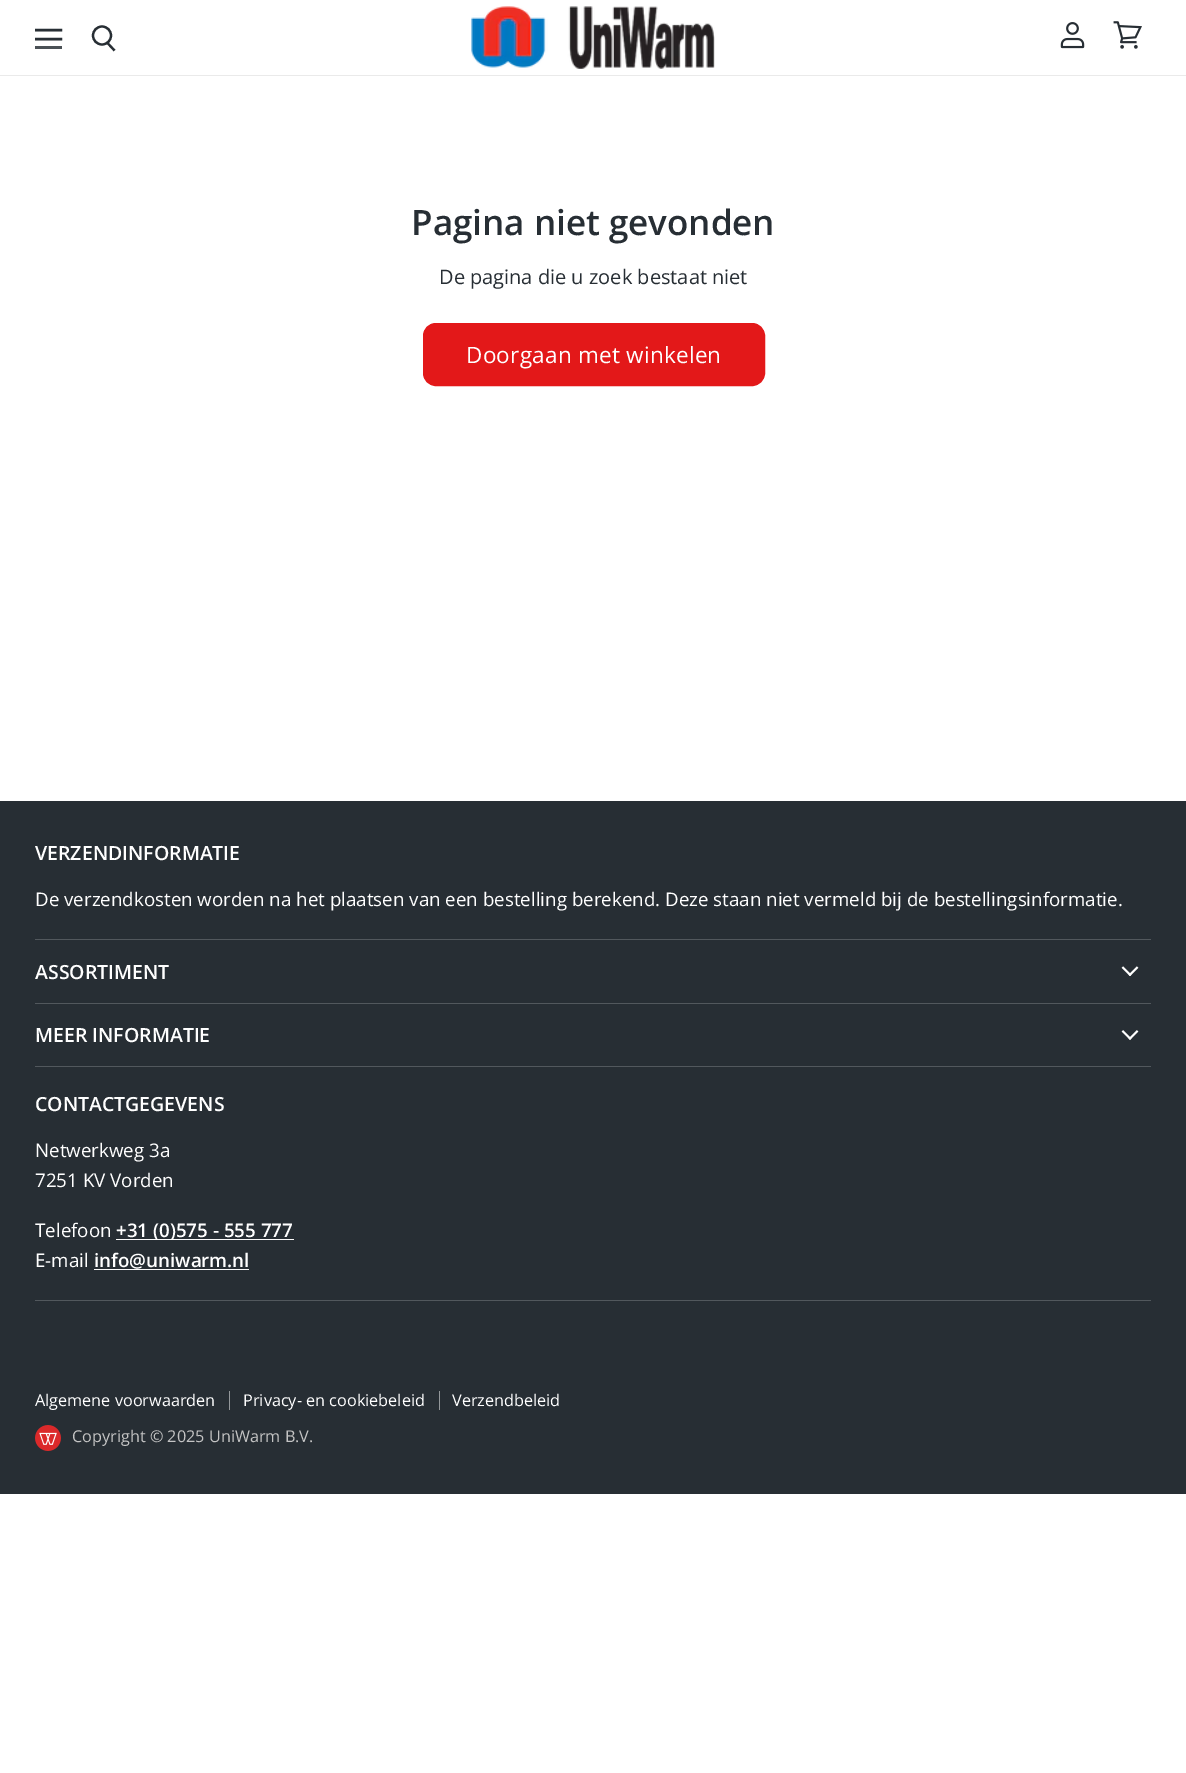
%!PS-Adobe-3.0
%%BoundingBox: 0 0 1186 1773
%%LanguageLevel: 3
%%Pages: 1
%%EndComments
%%BeginProlog
/setink { 3 { 255 div 3 1 roll } repeat setrgbcolor } def
/usefont { [ exch dup neg 0 0 3 -1 roll 0 0 ] selectfont } def
/drawtext { setink usefont moveto show } def
/fillbox { setink rectfill } def
/disc { newpath 0 360 arc closepath } def
/rrect { 5 dict begin { /r /h /w /y /x } { exch def } forall
  x r add y moveto x w add y 2 copy h add r arct x w add y h add x 1 index r arct
  x y h add x y r arct x y 2 copy exch w add exch r arct closepath end } def
/drawimage { 5 dict begin { /h /w /y /x /name } { exch def } forall
  gsave x y translate w h scale
  w h 8 [w 0 0 h 0 0] name (r) file false 3 colorimage grestore end } def
%%EndProlog
%%BeginSetup
<< /PageSize [1186 1773] >> setpagedevice
%%EndSetup
%%Page: 1 1
0 1773 translate 1 -1 scale
4 setmiterlimit
0 0 1186 1773 255 255 255 fillbox
0 75 1186 1 234 234 234 fillbox
gsave
35 28 28 22 rectclip
39 46 52 setink
2.5 setlinewidth
2 setlinecap
1 setlinejoin
61 30 moveto 36 30 lineto 61 39 moveto 36 39 lineto stroke
grestore
35 46 27 3 75 81 86 fillbox
39 46 52 setink
2.2 setlinewidth
114.5 50.5 moveto 107 42.5 lineto stroke
102 35.5 9 disc stroke
(assets/img1.rgb) 471 6 244 63 drawimage
(assets/img2.rgb) 1060 22 25 27 drawimage
(assets/img3.rgb) 1113 21 29 28 drawimage
(Pagina niet gevonden) 411 235 /OpenSans-SemiBold 35 39 46 52 drawtext
(De pagina die u zoek bestaat niet) 439 284 /OpenSans-Regular 20 39 46 52 drawtext
227 24 25 setink
423.5 323.5 341 62 12.5 rrect gsave fill grestore
1 setlinewidth
stroke
/OpenSans-Regular 22.5 usefont
255 255 255 setink
466 363 moveto 0.25 0 (Doorgaan met winkelen) ashow
0 801 1186 693 39 46 52 fillbox
35 939 1116 1 82 88 93 fillbox
(VERZENDINFORMATIE) 35 860 /OpenSans-SemiBold 19.5 255 255 255 drawtext
(De verzendkosten worden na het plaatsen van een bestelling berekend. Deze staan niet vermeld bij de bestellingsinformatie.) 35 906 /OpenSans-Regular 18.75 255 255 255 drawtext
35 1003 1116 1 82 88 93 fillbox
(ASSORTIMENT) 35 979 /OpenSans-SemiBold 19.5 255 255 255 drawtext
(assets/img4.rgb) 1121 966 18 10 drawimage
35 1066 1116 1 82 88 93 fillbox
(MEER INFORMATIE) 35 1042 /OpenSans-SemiBold 19.5 255 255 255 drawtext
(assets/img5.rgb) 1121 1030 18 10 drawimage
35 1300 1116 1 82 88 93 fillbox
(CONTACTGEGEVENS) 35 1111 /OpenSans-SemiBold 19.5 255 255 255 drawtext
(Netwerkweg 3a) 35 1157 /OpenSans-Regular 18.75 255 255 255 drawtext
(7251 KV Vorden) 35 1187 /OpenSans-Regular 18.75 255 255 255 drawtext
(Telefoon) 35 1237 /OpenSans-Regular 18.75 255 255 255 drawtext
116 1239 178 1 250 250 250 fillbox
(+31 \(0\)575 - 555 777) 116 1237 /OpenSans-SemiBold 18.75 255 255 255 drawtext
(E-mail) 35 1267 /OpenSans-Regular 18.75 255 255 255 drawtext
(info@uniwarm.nl) 94 1267 /OpenSans-SemiBold 18.75 255 255 255 drawtext
94 1269 155 1 250 250 250 fillbox
229 1391 1 19 147 151 154 fillbox
(Algemene voorwaarden) 35 1406 /OpenSans-Regular 16.25 255 255 255 drawtext
439 1391 1 19 147 151 154 fillbox
(Privacy- en cookiebeleid) 243 1406 /OpenSans-Regular 16.25 255 255 255 drawtext
(Verzendbeleid) 452 1406 /OpenSans-Regular 16.25 255 255 255 drawtext
(assets/img6.rgb) 35 1425 26 26 drawimage
(Copyright © 2025 UniWarm B.V.) 72 1442 /OpenSans-Regular 16.25 196 196 196 drawtext
showpage
%%EOF
